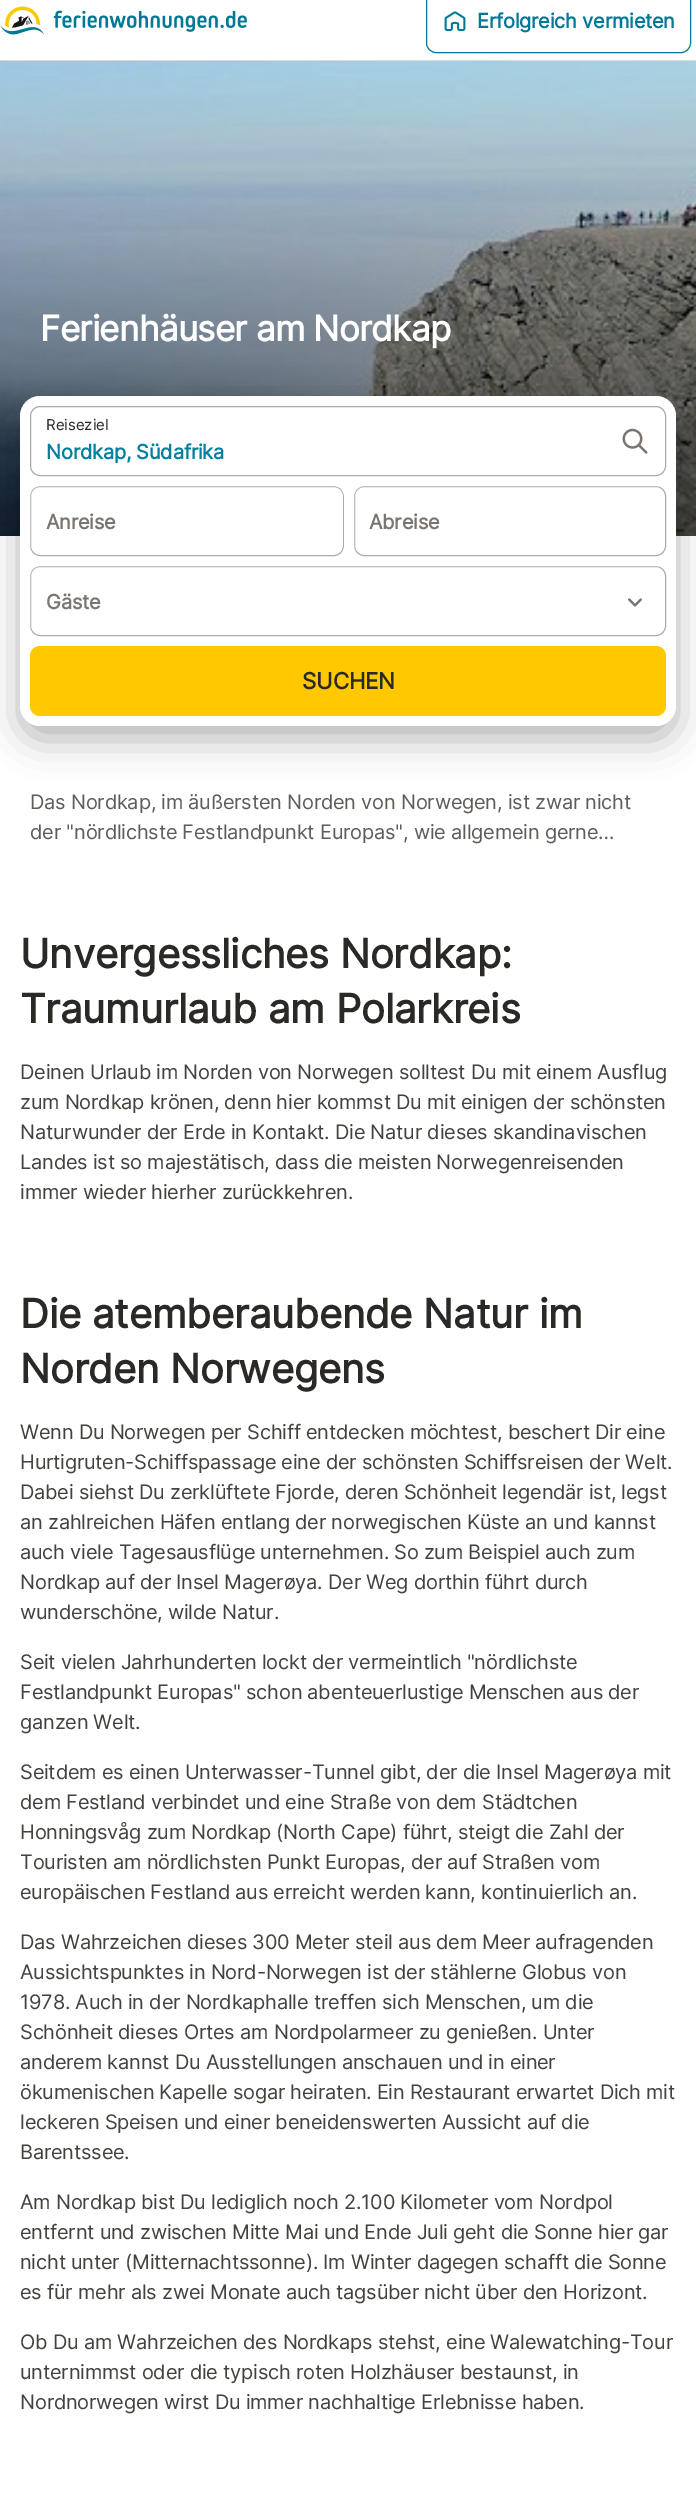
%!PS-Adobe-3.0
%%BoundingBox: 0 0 696 2505
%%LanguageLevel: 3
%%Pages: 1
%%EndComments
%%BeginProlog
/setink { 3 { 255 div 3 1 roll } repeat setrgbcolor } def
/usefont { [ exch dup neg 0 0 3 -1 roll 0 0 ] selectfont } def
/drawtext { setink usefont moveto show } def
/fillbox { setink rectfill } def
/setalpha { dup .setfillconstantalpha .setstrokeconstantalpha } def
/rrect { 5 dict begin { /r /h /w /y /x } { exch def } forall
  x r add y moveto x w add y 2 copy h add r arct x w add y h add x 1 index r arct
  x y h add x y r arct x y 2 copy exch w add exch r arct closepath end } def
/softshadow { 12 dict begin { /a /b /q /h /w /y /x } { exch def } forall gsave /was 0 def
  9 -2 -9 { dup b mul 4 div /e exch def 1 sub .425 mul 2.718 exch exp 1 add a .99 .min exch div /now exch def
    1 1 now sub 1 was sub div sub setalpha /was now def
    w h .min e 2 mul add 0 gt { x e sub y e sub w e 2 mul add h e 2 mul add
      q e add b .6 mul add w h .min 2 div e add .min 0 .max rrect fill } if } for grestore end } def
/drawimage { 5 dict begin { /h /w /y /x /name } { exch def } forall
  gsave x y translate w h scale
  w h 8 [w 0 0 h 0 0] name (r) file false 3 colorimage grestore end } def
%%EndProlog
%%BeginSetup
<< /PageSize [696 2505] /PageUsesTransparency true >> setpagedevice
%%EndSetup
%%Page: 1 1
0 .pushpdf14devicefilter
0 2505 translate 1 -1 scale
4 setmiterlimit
0 0 696 2505 255 255 255 fillbox
0 60 696 1 218 218 218 fillbox
(assets/img1.rgb) 0 6 247 29 drawimage
0 120 150 setink
426.5 -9.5 264 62 9.5 rrect stroke
(assets/img2.rgb) 444 11 22 21 drawimage
/Inter-Bold 20 usefont
477 28 moveto -0.22 0 (Erfolgreich vermieten) ashow
(assets/img3.rgb) 0 61 696 475 drawimage
/Inter-Bold 35 usefont
255 255 255 setink
40 341 moveto -0.75 0 (Ferienhäuser am Nordkap) ashow
0 0 0 setink
20 409 656 330 20 19 0.3 softshadow
255 255 255 setink
20 396 656 330 20 rrect fill
175 170 165 setink
30.5 406.5 635 69 9.5 rrect stroke
(Reiseziel) 46 430 /Inter-Regular 15 43 41 38 drawtext
/Inter-Bold 20 usefont
0 128 157 setink
46 459 moveto -0.22 0 (Nordkap, Südafrika) ashow
(assets/img4.rgb) 622 428 26 26 drawimage
175 170 165 setink
30.5 486.5 313 69 9.5 rrect stroke
255 255 255 setink
29.5 485.5 315 72 10.5 rrect stroke
122 117 112 setink
46 529 moveto -0.22 0 (Anreise) ashow
175 170 165 setink
354.5 486.5 311 69 9.5 rrect stroke
255 255 255 setink
353.5 485.5 314 72 10.5 rrect stroke
122 117 112 setink
369 529 moveto -0.22 0 (Abreise) ashow
175 170 165 setink
30.5 566.5 635 69 9.5 rrect stroke
255 255 255 setink
29.5 565.5 638 72 10.5 rrect stroke
122 117 112 setink
46 609 moveto -0.22 0 (Gäste) ashow
(assets/img5.rgb) 628 598 14 9 drawimage
255 200 0 setink
30 646 636 70 10 rrect fill
/Inter-Bold 22.5 usefont
43 41 38 setink
302 689 moveto -0.25 0 (SUCHEN) ashow
/Inter-Regular 20 usefont
96 92 87 setink
30 809 moveto -0.22 0 (Das Nordkap, im äußersten Norden von Norwegen, ist zwar nicht) ashow
30 839 moveto -0.22 0 (der "nördlichste Festlandpunkt Europas", wie allgemein gerne…) ashow
/Inter-Bold 40 usefont
43 41 38 setink
20 968 moveto -0.22 0 (Unvergessliches Nordkap:) ashow
20 1023 moveto -0.22 0 (Traumurlaub am Polarkreis) ashow
/Inter-Regular 20 usefont
69 66 62 setink
20 1079 moveto -0.22 0 (Deinen Urlaub im Norden von Norwegen solltest Du mit einem Ausflug) ashow
20 1109 moveto -0.22 0 (zum Nordkap krönen, denn hier kommst Du mit einigen der schönsten) ashow
20 1139 moveto -0.22 0 (Naturwunder der Erde in Kontakt. Die Natur dieses skandinavischen) ashow
20 1169 moveto -0.22 0 (Landes ist so majestätisch, dass die meisten Norwegenreisenden) ashow
20 1199 moveto -0.22 0 (immer wieder hierher zurückkehren.) ashow
/Inter-Bold 40 usefont
43 41 38 setink
20 1328 moveto -0.22 0 (Die atemberaubende Natur im) ashow
20 1383 moveto -0.22 0 (Norden Norwegens) ashow
/Inter-Regular 20 usefont
69 66 62 setink
20 1439 moveto -0.22 0 (Wenn Du Norwegen per Schiff entdecken möchtest, beschert Dir eine) ashow
20 1469 moveto -0.22 0 (Hurtigruten-Schiffspassage eine der schönsten Schiffsreisen der Welt.) ashow
20 1499 moveto -0.22 0 (Dabei siehst Du zerklüftete Fjorde, deren Schönheit legendär ist, legst) ashow
20 1529 moveto -0.22 0 (an zahlreichen Häfen entlang der norwegischen Küste an und kannst) ashow
20 1559 moveto -0.22 0 (auch viele Tagesausflüge unternehmen. So zum Beispiel auch zum) ashow
20 1589 moveto -0.22 0 (Nordkap auf der Insel Magerøya. Der Weg dorthin führt durch) ashow
20 1619 moveto -0.22 0 (wunderschöne, wilde Natur.) ashow
20 1669 moveto -0.22 0 (Seit vielen Jahrhunderten lockt der vermeintlich "nördlichste) ashow
20 1699 moveto -0.22 0 (Festlandpunkt Europas" schon abenteuerlustige Menschen aus der) ashow
20 1729 moveto -0.22 0 (ganzen Welt.) ashow
20 1779 moveto -0.22 0 (Seitdem es einen Unterwasser-Tunnel gibt, der die Insel Magerøya mit) ashow
20 1809 moveto -0.22 0 (dem Festland verbindet und eine Straße von dem Städtchen) ashow
20 1839 moveto -0.22 0 (Honningsvåg zum Nordkap \(North Cape\) führt, steigt die Zahl der) ashow
20 1869 moveto -0.22 0 (Touristen am nördlichsten Punkt Europas, der auf Straßen vom) ashow
20 1899 moveto -0.22 0 (europäischen Festland aus erreicht werden kann, kontinuierlich an.) ashow
20 1949 moveto -0.22 0 (Das Wahrzeichen dieses 300 Meter steil aus dem Meer aufragenden) ashow
20 1979 moveto -0.22 0 (Aussichtspunktes in Nord-Norwegen ist der stählerne Globus von) ashow
20 2009 moveto -0.22 0 (1978. Auch in der Nordkaphalle treffen sich Menschen, um die) ashow
20 2039 moveto -0.22 0 (Schönheit dieses Ortes am Nordpolarmeer zu genießen. Unter) ashow
20 2069 moveto -0.22 0 (anderem kannst Du Ausstellungen anschauen und in einer) ashow
20 2099 moveto -0.22 0 (ökumenischen Kapelle sogar heiraten. Ein Restaurant erwartet Dich mit) ashow
20 2129 moveto -0.22 0 (leckeren Speisen und einer beneidenswerten Aussicht auf die) ashow
20 2159 moveto -0.22 0 (Barentssee.) ashow
20 2209 moveto -0.22 0 (Am Nordkap bist Du lediglich noch 2.100 Kilometer vom Nordpol) ashow
20 2239 moveto -0.22 0 (entfernt und zwischen Mitte Mai und Ende Juli geht die Sonne hier gar) ashow
20 2269 moveto -0.22 0 (nicht unter \(Mitternachtssonne\). Im Winter dagegen schafft die Sonne) ashow
20 2299 moveto -0.22 0 (es für mehr als zwei Monate auch tagsüber nicht über den Horizont.) ashow
20 2349 moveto -0.22 0 (Ob Du am Wahrzeichen des Nordkaps stehst, eine Walewatching-Tour) ashow
20 2379 moveto -0.22 0 (unternimmst oder die typisch roten Holzhäuser bestaunst, in) ashow
20 2409 moveto -0.22 0 (Nordnorwegen wirst Du immer nachhaltige Erlebnisse haben.) ashow
.poppdf14devicefilter showpage
%%EOF
